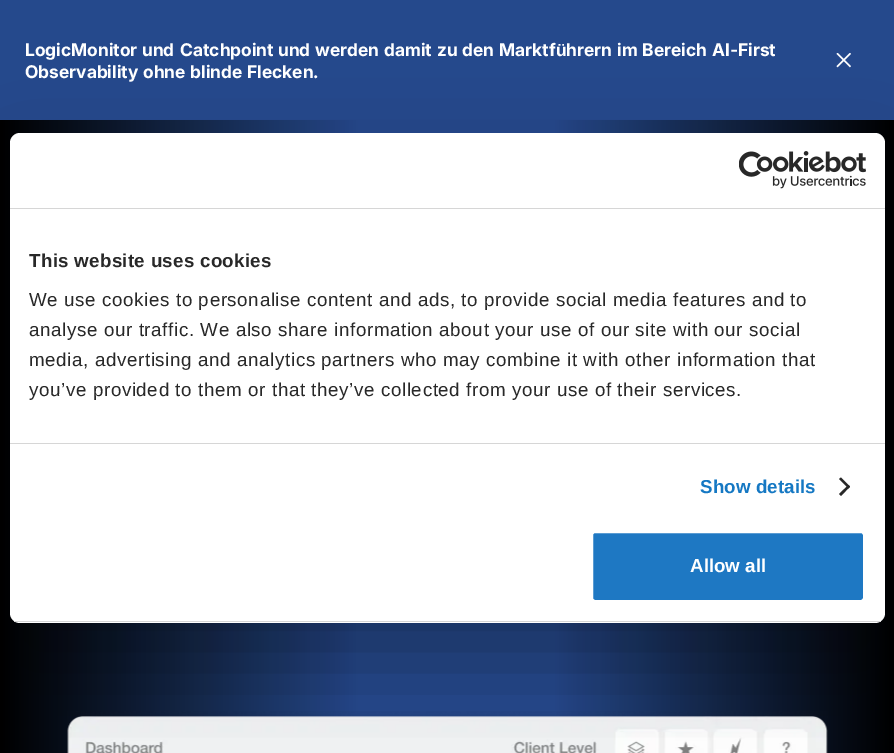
%!PS-Adobe-3.0
%%BoundingBox: 0 0 894 753
%%LanguageLevel: 3
%%Pages: 1
%%EndComments
%%BeginProlog
/setink { 3 { 255 div 3 1 roll } repeat setrgbcolor } def
/usefont { [ exch dup neg 0 0 3 -1 roll 0 0 ] selectfont } def
/drawtext { setink usefont moveto show } def
/fillbox { setink rectfill } def
/setalpha { dup .setfillconstantalpha .setstrokeconstantalpha } def
/rrect { 5 dict begin { /r /h /w /y /x } { exch def } forall
  x r add y moveto x w add y 2 copy h add r arct x w add y h add x 1 index r arct
  x y h add x y r arct x y 2 copy exch w add exch r arct closepath end } def
/softshadow { 12 dict begin { /a /b /q /h /w /y /x } { exch def } forall gsave /was 0 def
  9 -2 -9 { dup b mul 4 div /e exch def 1 sub .425 mul 2.718 exch exp 1 add a .99 .min exch div /now exch def
    1 1 now sub 1 was sub div sub setalpha /was now def
    w h .min e 2 mul add 0 gt { x e sub y e sub w e 2 mul add h e 2 mul add
      q e add b .6 mul add w h .min 2 div e add .min 0 .max rrect fill } if } for grestore end } def
/drawimage { 5 dict begin { /h /w /y /x /name } { exch def } forall
  gsave x y translate w h scale
  w h 8 [w 0 0 h 0 0] name (r) file false 3 colorimage grestore end } def
%%EndProlog
%%BeginSetup
<< /PageSize [894 753] /PageUsesTransparency true >> setpagedevice
%%EndSetup
%%Page: 1 1
0 .pushpdf14devicefilter
0 753 translate 1 -1 scale
4 setmiterlimit
0 0 894 753 255 255 255 fillbox
gsave 0 120 moveto 894 120 lineto 894 753 lineto 0 753 lineto closepath clip newpath
<< /ShadingType 2 /ColorSpace /DeviceRGB /Coords [0 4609 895 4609] /Extend [true true] /Function << /FunctionType 3 /Domain [0 1] /Functions [<< /FunctionType 2 /Domain [0 1] /C0 [0 0 0] /C1 [0.145 0.286 0.549] /N 1 >> << /FunctionType 2 /Domain [0 1] /C0 [0.145 0.286 0.549] /C1 [0.145 0.286 0.549] /N 1 >> << /FunctionType 2 /Domain [0 1] /C0 [0.145 0.286 0.549] /C1 [0 0 0] /N 1 >>] /Bounds [0.4 0.62] /Encode [0 1 0 1 0 1] >> >> shfill grestore
0 0 894 120 37 73 140 fillbox
(LogicMonitor) 25 56 /Inter-Bold 17.5 255 255 255 drawtext
(und) 142 56 /Inter-Bold 17.5 255 255 255 drawtext
(Catchpoint) 180 56 /Inter-Bold 17.5 255 255 255 drawtext
(und) 278 56 /Inter-Bold 17.5 255 255 255 drawtext
(werden) 315 56 /Inter-Bold 17.5 255 255 255 drawtext
(damit) 384 56 /Inter-Bold 17.5 255 255 255 drawtext
(zu) 437 56 /Inter-Bold 17.5 255 255 255 drawtext
(den) 462 56 /Inter-Bold 17.5 255 255 255 drawtext
(Marktf) 499 56 /Inter-Bold 17.5 255 255 255 drawtext
(ü) 556 56 /LiberationSans-Bold 17.5 255 255 255 drawtext
(hrern) 566 56 /Inter-Bold 17.5 255 255 255 drawtext
(im) 617 56 /Inter-Bold 17.5 255 255 255 drawtext
(Bereich) 642 56 /Inter-Bold 17.5 255 255 255 drawtext
(AI-First) 712 56 /Inter-Bold 17.5 255 255 255 drawtext
(Observability) 25 78 /Inter-Bold 17.5 255 255 255 drawtext
(ohne) 143 78 /Inter-Bold 17.5 255 255 255 drawtext
(blinde) 190 78 /Inter-Bold 17.5 255 255 255 drawtext
(Flecken.) 247 78 /Inter-Bold 17.5 255 255 255 drawtext
(assets/img1.rgb) 836 53 15 15 drawimage
(assets/img2.rgb) 67 711 761 42 drawimage
0 0 0 setink
10 173 875 490 10 42.5 0.3 softshadow
255 255 255 setink
10 133 875 490 10 rrect fill
10 208 875 1 214 214 214 fillbox
(assets/img3.rgb) 739 151 127 38 drawimage
10 443 875 1 214 214 214 fillbox
/LiberationSans-Bold 18.75 usefont
40 40 40 setink
29 267 moveto 0.3 0 (This website uses cookies) ashow
/LiberationSans-Regular 18.75 usefont
29 306 moveto 0.62 0 (We use cookies to personalise content and ads, to provide social media features and to) ashow
29 336 moveto 0.62 0 (analyse our traffic. We also share information about your use of our site with our social) ashow
29 366 moveto 0.62 0 (media, advertising and analytics partners who may combine it with other information that) ashow
29 396 moveto 0.62 0 (you’ve provided to them or that they’ve collected from your use of their services.) ashow
/LiberationSans-Bold 18.75 usefont
21 120 195 setink
700 493 moveto 0.1 0 (Show details) ashow
40 40 40 setink
841 477.5 moveto 850 486.5 lineto 848.5 488.5 lineto 839 479 lineto closepath fill
848.5 485 moveto 850 486.5 lineto 841 496 lineto 839 494 lineto closepath fill
gsave
10 133 875 490 10 rrect clip newpath
10 621 875 1 214 214 214 fillbox
grestore
30 120 195 setink
591.5 531.5 273 70 3.5 rrect gsave fill grestore
255 255 255 setink
3 setlinewidth
stroke
(Allow all) 690 572 /LiberationSans-Bold 18.75 255 255 255 drawtext
.poppdf14devicefilter showpage
%%EOF
